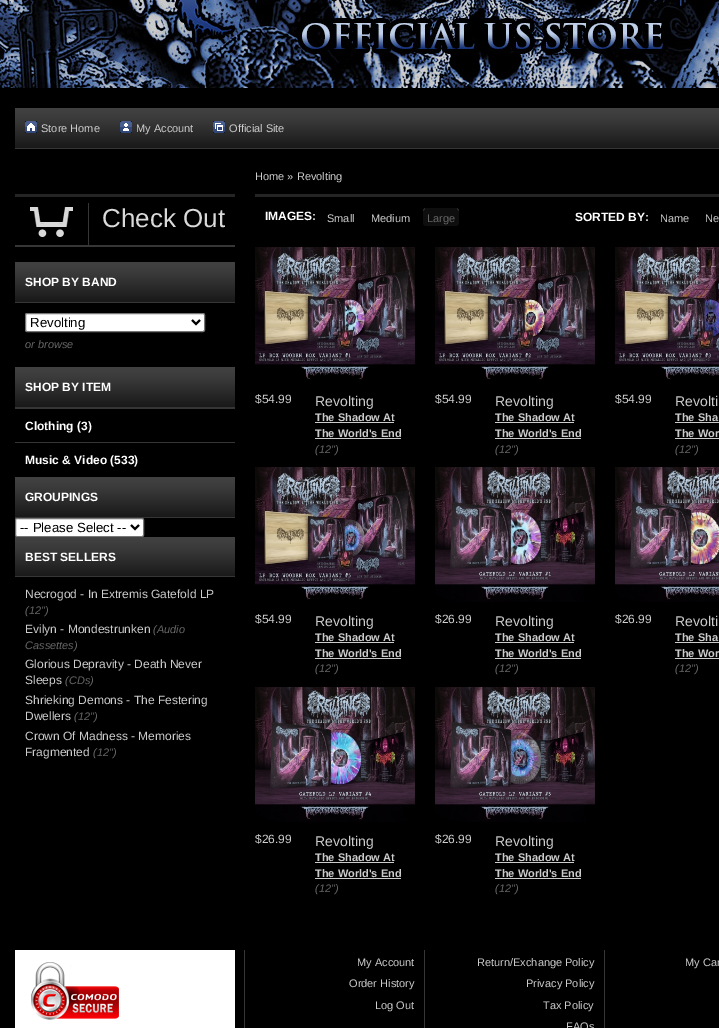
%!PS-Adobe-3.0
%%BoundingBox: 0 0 719 1028
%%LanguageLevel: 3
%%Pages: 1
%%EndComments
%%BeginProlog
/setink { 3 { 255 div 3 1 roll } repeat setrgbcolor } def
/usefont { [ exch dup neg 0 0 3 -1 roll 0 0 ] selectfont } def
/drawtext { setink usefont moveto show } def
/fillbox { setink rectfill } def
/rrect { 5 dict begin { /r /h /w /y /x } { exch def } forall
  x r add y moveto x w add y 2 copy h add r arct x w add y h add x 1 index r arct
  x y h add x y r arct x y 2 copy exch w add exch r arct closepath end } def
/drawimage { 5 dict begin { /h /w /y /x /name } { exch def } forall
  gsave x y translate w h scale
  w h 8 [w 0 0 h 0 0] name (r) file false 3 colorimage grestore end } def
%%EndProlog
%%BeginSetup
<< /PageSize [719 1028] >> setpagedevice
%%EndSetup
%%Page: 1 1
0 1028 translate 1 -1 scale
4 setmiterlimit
0 0 719 1028 0 0 0 fillbox
(assets/img1.rgb) 0 0 719 88 drawimage
(assets/img2.rgb) 15 108 704 40 drawimage
15 148 704 1 54 54 54 fillbox
25 121 12 12 59 85 145 fillbox
(assets/img3.rgb) 25 121 12 12 drawimage
(Store Home) 41 132 /LiberationSans-Regular 11 204 204 204 drawtext
120 121 12 12 59 85 145 fillbox
(assets/img4.rgb) 120 121 12 12 drawimage
(My Account) 136 132 /LiberationSans-Regular 11 204 204 204 drawtext
213 121 12 12 59 85 145 fillbox
(assets/img5.rgb) 213 121 12 12 drawimage
(Official Site) 229 132 /LiberationSans-Regular 11 204 204 204 drawtext
15 194 220 3 37 37 37 fillbox
15 245 220 2 54 54 54 fillbox
(assets/img6.rgb) 30 207 43 30 drawimage
88 203 1 42 54 54 54 fillbox
(Check Out) 102 227 /LiberationSans-Regular 26 217 217 217 drawtext
(assets/img7.rgb) 15 262 220 40 drawimage
15 302 220 1 54 54 54 fillbox
(SHOP BY BAND) 25 286 /LiberationSans-Bold 12 255 255 255 drawtext
25.5 313.5 179 18 1.5 rrect gsave fill grestore
118 118 118 setink
stroke
0 0 0 setink
2 setlinewidth
192 320 moveto 196 324 lineto 200 320 lineto stroke
(Revolting) 30 327 /LiberationSans-Regular 13.25 0 0 0 drawtext
(or browse) 25 348 /LiberationSans-Italic 11 102 102 102 drawtext
(assets/img7.rgb) 15 367 220 40 drawimage
15 407 220 2 54 54 54 fillbox
(SHOP BY ITEM) 25 391 /LiberationSans-Bold 12 255 255 255 drawtext
15 442 220 1 54 54 54 fillbox
(Clothing \(3\)) 25 430 /LiberationSans-Bold 12 255 255 255 drawtext
(Music & Video \(533\)) 25 464 /LiberationSans-Bold 12 255 255 255 drawtext
(assets/img7.rgb) 15 477 220 40 drawimage
15 517 220 1 54 54 54 fillbox
(GROUPINGS) 25 501 /LiberationSans-Bold 12 255 255 255 drawtext
15.5 518.5 128 18 1.5 rrect gsave fill grestore
118 118 118 setink
1 setlinewidth
stroke
0 0 0 setink
2 setlinewidth
131 525 moveto 135 529 lineto 139 525 lineto stroke
(-- Please Select --) 20 532 /LiberationSans-Regular 13.25 0 0 0 drawtext
(assets/img8.rgb) 15 537 220 39 drawimage
15 576 220 1 54 54 54 fillbox
(BEST SELLERS) 25 561 /LiberationSans-Bold 12 255 255 255 drawtext
(Necrogod - In Extremis Gatefold LP) 25 598 /LiberationSans-Regular 12 204 204 204 drawtext
(\(12"\)) 25 614 /LiberationSans-Italic 11 102 102 102 drawtext
(Evilyn - Mondestrunken) 25 633 /LiberationSans-Regular 12 204 204 204 drawtext
(\(Audio) 153 633 /LiberationSans-Italic 11 102 102 102 drawtext
(Cassettes\)) 25 649 /LiberationSans-Italic 11 102 102 102 drawtext
(Glorious Depravity - Death Never) 25 668 /LiberationSans-Regular 12 204 204 204 drawtext
(Sleeps) 25 684 /LiberationSans-Regular 12 204 204 204 drawtext
(\(CDs\)) 65 684 /LiberationSans-Italic 11 102 102 102 drawtext
(Shrieking Demons - The Festering) 25 704 /LiberationSans-Regular 12 204 204 204 drawtext
(Dwellers) 25 720 /LiberationSans-Regular 12 204 204 204 drawtext
(\(12"\)) 74 720 /LiberationSans-Italic 11 102 102 102 drawtext
(Crown Of Madness - Memories) 25 740 /LiberationSans-Regular 12 204 204 204 drawtext
(Fragmented) 25 756 /LiberationSans-Regular 12 204 204 204 drawtext
(\(12"\)) 93 756 /LiberationSans-Italic 11 102 102 102 drawtext
255 194 464 3 37 37 37 fillbox
(Home » Revolting) 255 180 /LiberationSans-Regular 11 204 204 204 drawtext
(IMAGES:) 265 220 /LiberationSans-Bold 12 255 255 255 drawtext
(Small) 327 222 /LiberationSans-Regular 11 204 204 204 drawtext
(Medium) 371 222 /LiberationSans-Regular 11 204 204 204 drawtext
(assets/img9.rgb) 423 208 2 18 drawimage
425 208 32 18 14 14 14 fillbox
(Large) 427 222 /LiberationSans-Regular 11 102 102 102 drawtext
(assets/img10.rgb) 457 208 2 18 drawimage
(SORTED BY:) 575 221 /LiberationSans-Bold 12 255 255 255 drawtext
(Name) 660 222 /LiberationSans-Regular 11 204 204 204 drawtext
(Ne) 705 222 /LiberationSans-Regular 11 204 204 204 drawtext
(assets/img11.rgb) 255 247 160 133 drawimage
($54.99) 255 403 /LiberationSans-Regular 12 204 204 204 drawtext
(Revolting) 315 406 /LiberationSans-Regular 14 204 204 204 drawtext
(The Shadow At) 315 421 /LiberationSans-Bold 11 204 204 204 drawtext
315 422 79 1 204 204 204 fillbox
(The World's End) 315 437 /LiberationSans-Bold 11 204 204 204 drawtext
315 438 86 1 204 204 204 fillbox
(\(12"\)) 315 453 /LiberationSans-Italic 11 102 102 102 drawtext
(assets/img12.rgb) 435 247 160 133 drawimage
($54.99) 435 403 /LiberationSans-Regular 12 204 204 204 drawtext
(Revolting) 495 406 /LiberationSans-Regular 14 204 204 204 drawtext
(The Shadow At) 495 421 /LiberationSans-Bold 11 204 204 204 drawtext
495 422 79 1 204 204 204 fillbox
(The World's End) 495 437 /LiberationSans-Bold 11 204 204 204 drawtext
495 438 86 1 204 204 204 fillbox
(\(12"\)) 495 453 /LiberationSans-Italic 11 102 102 102 drawtext
(assets/img13.rgb) 615 247 104 133 drawimage
($54.99) 615 403 /LiberationSans-Regular 12 204 204 204 drawtext
(Revolti) 675 406 /LiberationSans-Regular 14 204 204 204 drawtext
(The Sha) 675 421 /LiberationSans-Bold 11 204 204 204 drawtext
675 422 44 1 204 204 204 fillbox
(The Wor) 675 437 /LiberationSans-Bold 11 204 204 204 drawtext
675 438 44 1 204 204 204 fillbox
(\(12"\)) 675 453 /LiberationSans-Italic 11 102 102 102 drawtext
(assets/img14.rgb) 255 467 160 133 drawimage
($54.99) 255 623 /LiberationSans-Regular 12 204 204 204 drawtext
(Revolting) 315 626 /LiberationSans-Regular 14 204 204 204 drawtext
(The Shadow At) 315 641 /LiberationSans-Bold 11 204 204 204 drawtext
315 642 79 1 204 204 204 fillbox
(The World's End) 315 657 /LiberationSans-Bold 11 204 204 204 drawtext
315 658 86 1 204 204 204 fillbox
(\(12"\)) 315 672 /LiberationSans-Italic 11 102 102 102 drawtext
(assets/img15.rgb) 435 467 160 135 drawimage
($26.99) 435 623 /LiberationSans-Regular 12 204 204 204 drawtext
(Revolting) 495 626 /LiberationSans-Regular 14 204 204 204 drawtext
(The Shadow At) 495 641 /LiberationSans-Bold 11 204 204 204 drawtext
495 642 79 1 204 204 204 fillbox
(The World's End) 495 657 /LiberationSans-Bold 11 204 204 204 drawtext
495 658 86 1 204 204 204 fillbox
(\(12"\)) 495 672 /LiberationSans-Italic 11 102 102 102 drawtext
(assets/img16.rgb) 615 467 104 135 drawimage
($26.99) 615 623 /LiberationSans-Regular 12 204 204 204 drawtext
(Revolti) 675 626 /LiberationSans-Regular 14 204 204 204 drawtext
(The Sha) 675 641 /LiberationSans-Bold 11 204 204 204 drawtext
675 642 44 1 204 204 204 fillbox
(The Wor) 675 657 /LiberationSans-Bold 11 204 204 204 drawtext
675 658 44 1 204 204 204 fillbox
(\(12"\)) 675 672 /LiberationSans-Italic 11 102 102 102 drawtext
(assets/img17.rgb) 255 687 160 135 drawimage
($26.99) 255 843 /LiberationSans-Regular 12 204 204 204 drawtext
(Revolting) 315 846 /LiberationSans-Regular 14 204 204 204 drawtext
(The Shadow At) 315 861 /LiberationSans-Bold 11 204 204 204 drawtext
315 862 79 1 204 204 204 fillbox
(The World's End) 315 877 /LiberationSans-Bold 11 204 204 204 drawtext
315 878 86 1 204 204 204 fillbox
(\(12"\)) 315 892 /LiberationSans-Italic 11 102 102 102 drawtext
(assets/img18.rgb) 435 687 160 135 drawimage
($26.99) 435 843 /LiberationSans-Regular 12 204 204 204 drawtext
(Revolting) 495 846 /LiberationSans-Regular 14 204 204 204 drawtext
(The Shadow At) 495 861 /LiberationSans-Bold 11 204 204 204 drawtext
495 862 79 1 204 204 204 fillbox
(The World's End) 495 877 /LiberationSans-Bold 11 204 204 204 drawtext
495 878 86 1 204 204 204 fillbox
(\(12"\)) 495 892 /LiberationSans-Italic 11 102 102 102 drawtext
244 950 1 78 54 54 54 fillbox
15 950 220 78 255 255 255 fillbox
(assets/img19.rgb) 31 962 88 58 drawimage
424 950 1 78 54 54 54 fillbox
(My Account) 357 966 /LiberationSans-Regular 11 204 204 204 drawtext
(Order History) 349 987 /LiberationSans-Regular 11 204 204 204 drawtext
(Log Out) 375 1009 /LiberationSans-Regular 11 204 204 204 drawtext
604 950 1 78 54 54 54 fillbox
(Return/Exchange Policy) 477 966 /LiberationSans-Regular 11 204 204 204 drawtext
(Privacy Policy) 526 987 /LiberationSans-Regular 11 204 204 204 drawtext
(Tax Policy) 543 1009 /LiberationSans-Regular 11 204 204 204 drawtext
(FAQs) 566 1030 /LiberationSans-Regular 11 204 204 204 drawtext
(My Car) 685 966 /LiberationSans-Regular 11 204 204 204 drawtext
showpage
%%EOF
